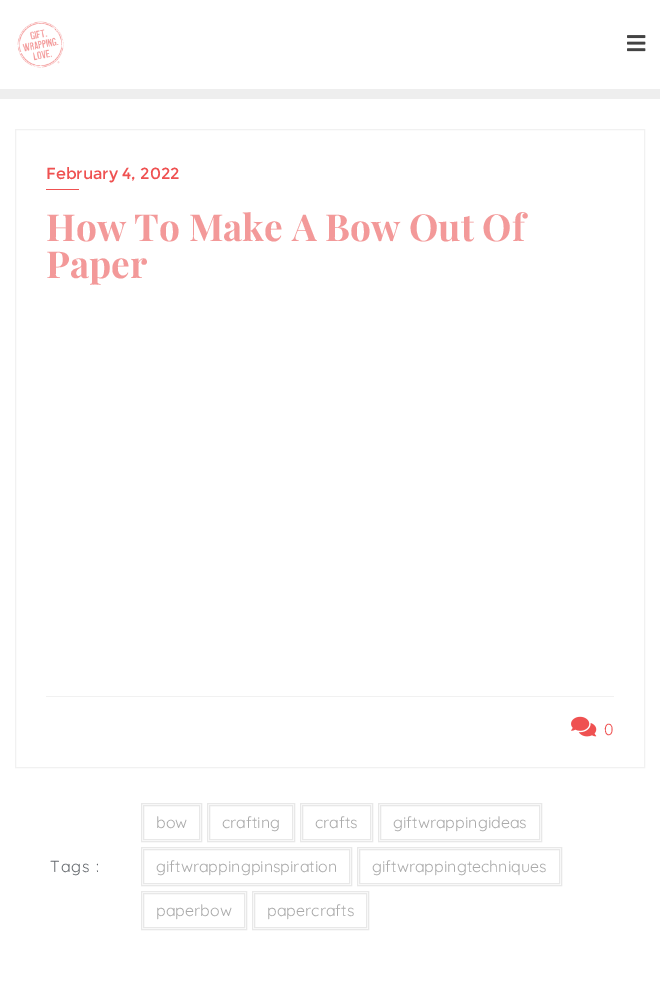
%!PS-Adobe-3.0
%%BoundingBox: 0 0 660 986
%%LanguageLevel: 3
%%Pages: 1
%%EndComments
%%BeginProlog
/setink { 3 { 255 div 3 1 roll } repeat setrgbcolor } def
/usefont { [ exch dup neg 0 0 3 -1 roll 0 0 ] selectfont } def
/drawtext { setink usefont moveto show } def
/fillbox { setink rectfill } def
/drawimage { 5 dict begin { /h /w /y /x /name } { exch def } forall
  gsave x y translate w h scale
  w h 8 [w 0 0 h 0 0] name (r) file false 3 colorimage grestore end } def
%%EndProlog
%%BeginSetup
<< /PageSize [660 986] >> setpagedevice
%%EndSetup
%%Page: 1 1
0 986 translate 1 -1 scale
4 setmiterlimit
0 0 660 986 255 255 255 fillbox
0 89 660 10 238 238 238 fillbox
(assets/img1.rgb) 17 21 47 47 drawimage
(assets/img2.rgb) 627 35 19 17 drawimage
241 241 241 setink
15.5 129.5 629 638 rectstroke
(February 4, 2022) 46 179 /Montserrat-Regular 16 239 81 81 drawtext
46 189 33 1 239 81 81 fillbox
(How To Make A Bow Out Of) 46 241 /PlayfairDisplay-Bold 37.1 243 153 153 drawtext
(Paper) 46 278 /PlayfairDisplay-Bold 37.1 243 153 153 drawtext
46 696 568 1 241 241 241 fillbox
(assets/img3.rgb) 571 716 26 21 drawimage
(0) 604 735 /Quicksand-Regular 16 239 81 81 drawtext
100 104 109 setink
50 872 moveto 1 0 (Tags :) ashow
232 232 232 setink
141.5 803.5 60 38 rectstroke
143.5 805.5 56 34 rectstroke
(bow) 156 828 /Quicksand-Regular 16 170 170 170 drawtext
232 232 232 setink
207.5 803.5 87 38 rectstroke
209.5 805.5 83 34 rectstroke
(crafting) 222 828 /Quicksand-Regular 16 170 170 170 drawtext
232 232 232 setink
300.5 803.5 72 38 rectstroke
302.5 805.5 68 34 rectstroke
(crafts) 315 828 /Quicksand-Regular 16 170 170 170 drawtext
232 232 232 setink
378.5 803.5 163 38 rectstroke
380.5 805.5 159 34 rectstroke
(giftwrappingideas) 393 828 /Quicksand-Regular 16 170 170 170 drawtext
232 232 232 setink
141.5 847.5 210 38 rectstroke
143.5 849.5 206 34 rectstroke
(giftwrappingpinspiration) 156 872 /Quicksand-Regular 16 170 170 170 drawtext
232 232 232 setink
357.5 847.5 204 38 rectstroke
359.5 849.5 200 34 rectstroke
(giftwrappingtechniques) 372 872 /Quicksand-Regular 16 170 170 170 drawtext
232 232 232 setink
141.5 891.5 105 38 rectstroke
143.5 893.5 101 34 rectstroke
(paperbow) 156 916 /Quicksand-Regular 16 170 170 170 drawtext
232 232 232 setink
252.5 891.5 116 38 rectstroke
254.5 893.5 112 34 rectstroke
(papercrafts) 267 916 /Quicksand-Regular 16 170 170 170 drawtext
showpage
%%EOF
